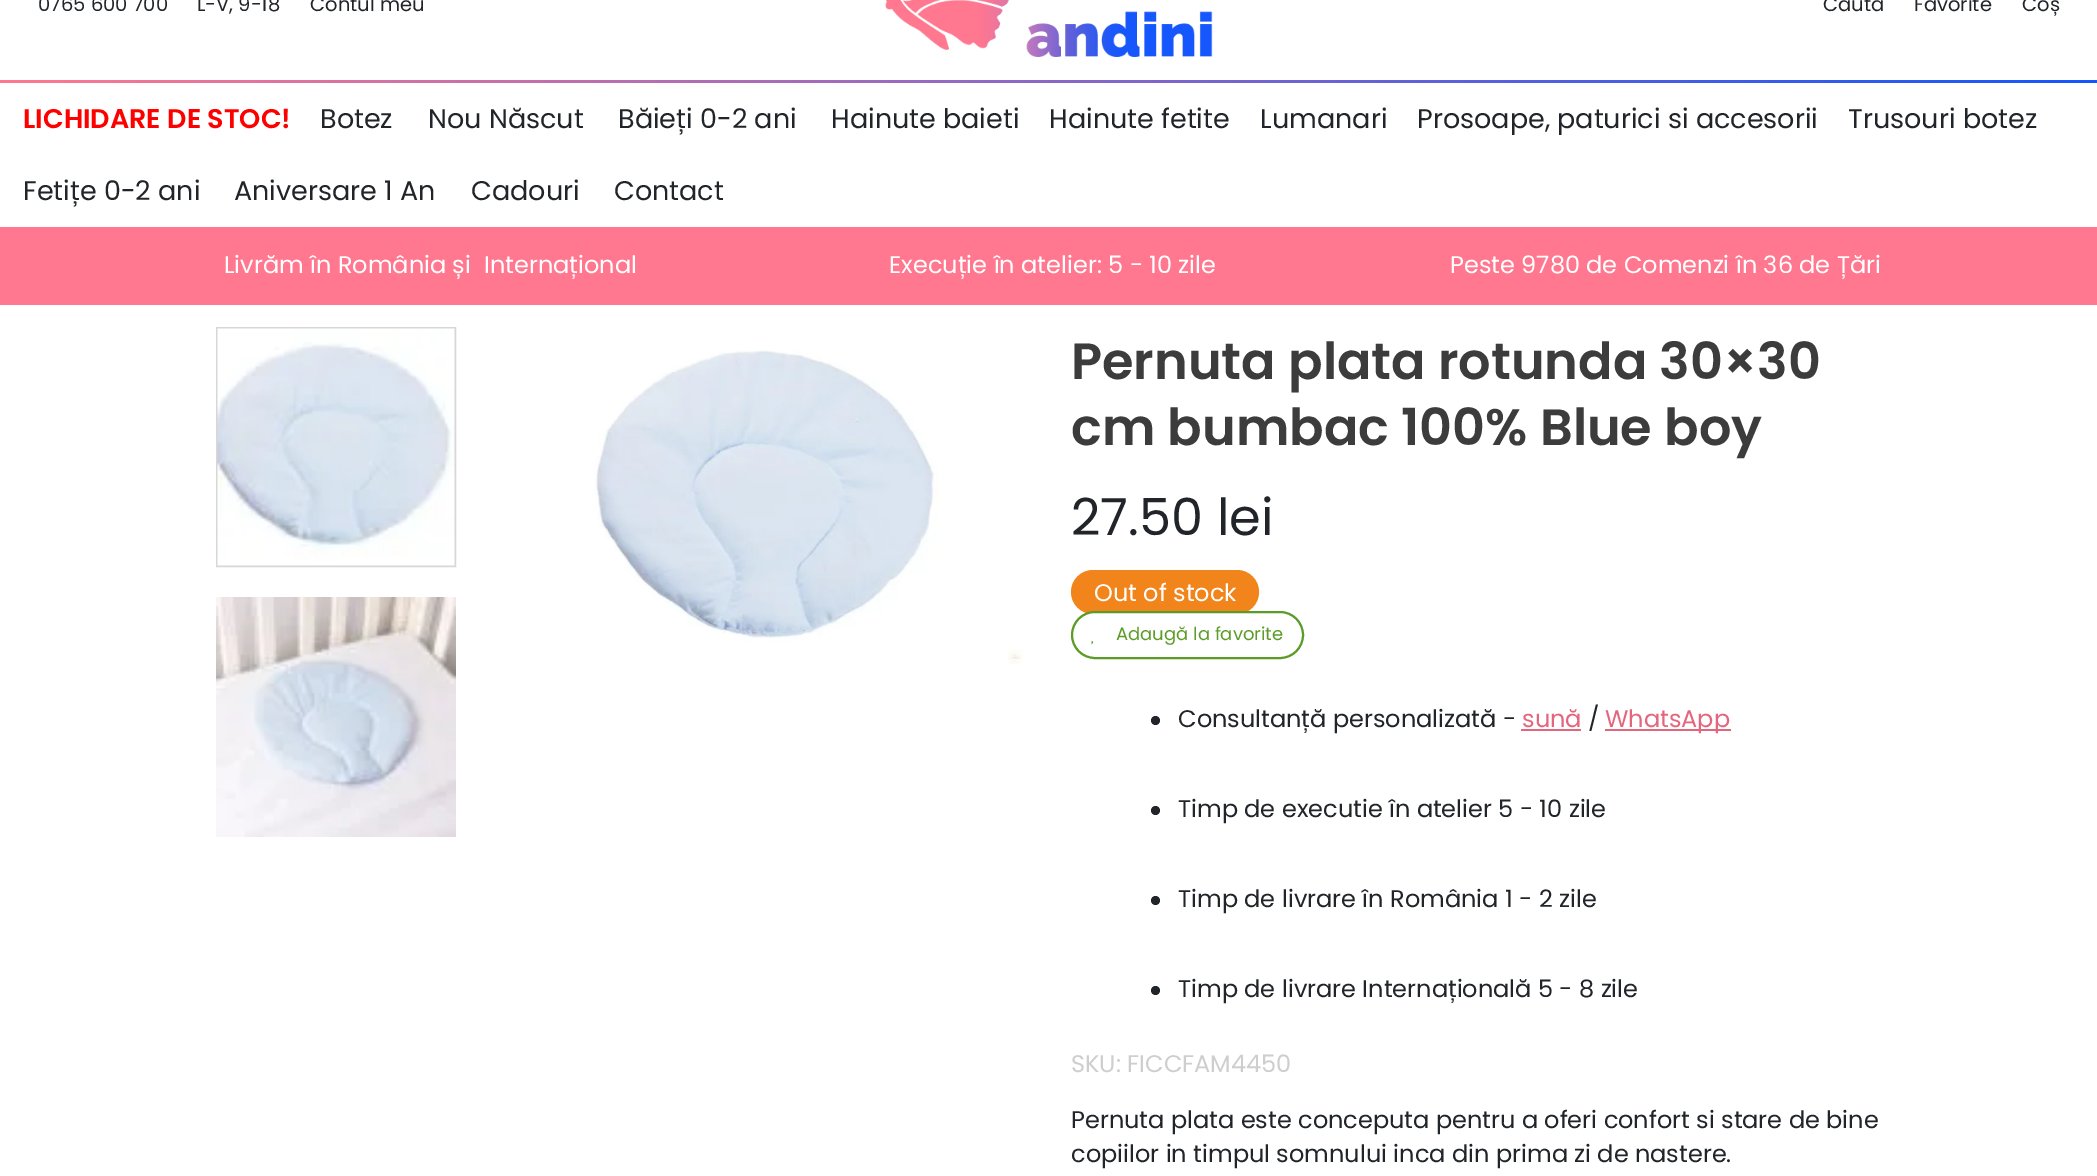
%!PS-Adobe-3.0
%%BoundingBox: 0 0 2097 1176
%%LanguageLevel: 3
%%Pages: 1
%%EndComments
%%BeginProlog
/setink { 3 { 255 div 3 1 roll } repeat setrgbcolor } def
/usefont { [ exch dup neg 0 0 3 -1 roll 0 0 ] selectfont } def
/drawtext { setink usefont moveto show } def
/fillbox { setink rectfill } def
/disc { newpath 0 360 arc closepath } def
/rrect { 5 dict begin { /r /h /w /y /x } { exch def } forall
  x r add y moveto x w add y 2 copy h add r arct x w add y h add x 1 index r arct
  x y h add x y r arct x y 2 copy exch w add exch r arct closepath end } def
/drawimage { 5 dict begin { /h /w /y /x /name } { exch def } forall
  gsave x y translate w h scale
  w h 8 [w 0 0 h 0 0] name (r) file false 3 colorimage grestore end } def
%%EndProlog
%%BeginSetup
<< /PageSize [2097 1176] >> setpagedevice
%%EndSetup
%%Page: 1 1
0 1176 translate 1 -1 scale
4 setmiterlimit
0 0 2097 1176 255 255 255 fillbox
(0765 600 700) 38 11 /Poppins-Regular 19.5 33 37 41 drawtext
(L-V, 9-18) 197 11 /Poppins-Regular 19.5 33 37 41 drawtext
(Contul meu) 310 11 /Poppins-Regular 19.5 33 37 41 drawtext
(assets/img1.rgb) 885 0 328 57 drawimage
(Caută) 1823 11 /Poppins-Regular 19.5 33 37 41 drawtext
(Favorite) 1914 11 /Poppins-Regular 19.5 33 37 41 drawtext
(Coș) 2022 11 /Poppins-Regular 19.5 33 37 41 drawtext
gsave 0 80 moveto 2097 80 lineto 2097 83 lineto 0 83 lineto closepath clip newpath
<< /ShadingType 2 /ColorSpace /DeviceRGB /Coords [0 81 2097 81] /Extend [true true] /Function << /FunctionType 2 /Domain [0 1] /C0 [1 0.471 0.565] /C1 [0.082 0.341 0.992] /N 1 >> >> shfill grestore
(LICHIDARE DE STOC!) 23 128 /Poppins-SemiBold 27 255 0 0 drawtext
(Botez) 320 128 /Poppins-Regular 27 33 37 41 drawtext
(Nou Născut) 428 128 /Poppins-Regular 27 33 37 41 drawtext
(Băieți 0-2 ani) 618 128 /Poppins-Regular 27 33 37 41 drawtext
(Hainute baieti) 831 128 /Poppins-Regular 27 33 37 41 drawtext
(Hainute fetite) 1049 128 /Poppins-Regular 27 33 37 41 drawtext
(Lumanari) 1260 128 /Poppins-Regular 27 33 37 41 drawtext
(Prosoape, paturici si accesorii) 1417 128 /Poppins-Regular 27 33 37 41 drawtext
(Trusouri botez) 1848 128 /Poppins-Regular 27 33 37 41 drawtext
(Fetițe 0-2 ani) 23 200 /Poppins-Regular 27 33 37 41 drawtext
(Aniversare 1 An) 234 200 /Poppins-Regular 27 33 37 41 drawtext
(Cadouri) 471 200 /Poppins-Regular 27 33 37 41 drawtext
(Contact) 614 200 /Poppins-Regular 27 33 37 41 drawtext
0 227 2097 78 255 120 144 fillbox
(Livrăm în România și) 224 273 /Poppins-Regular 24 255 255 255 drawtext
(Internațional) 484 273 /Poppins-Regular 24 255 255 255 drawtext
(Execuție în atelier: 5 - 10 zile) 889 273 /Poppins-Regular 24 255 255 255 drawtext
(Peste 9780 de Comenzi în 36 de Țări) 1450 273 /Poppins-Regular 24 255 255 255 drawtext
216 214 214 setink
2 setlinewidth
217 328 238 238 rectstroke
(assets/img2.rgb) 217 328 238 238 drawimage
(assets/img3.rgb) 216 597 240 240 drawimage
(assets/img4.rgb) 594 350 429 314 drawimage
(Pernuta plata rotunda 30×30) 1071 379 /Poppins-SemiBold 51 60 60 60 drawtext
(cm bumbac 100% Blue boy) 1071 445 /Poppins-SemiBold 51 60 60 60 drawtext
(27.50 lei) 1071 535 /Poppins-Regular 51 33 37 41 drawtext
241 132 26 setink
1071 570 188 44 22 rrect fill
(Out of stock) 1094 601 /Poppins-Regular 24 255 255 255 drawtext
1072 612 231 46 23 rrect gsave fill grestore
91 156 39 setink
stroke
(assets/img5.rgb) 1091 641 3 4 drawimage
(Adaugă la favorite) 1116 640 /Poppins-Regular 18 91 156 39 drawtext
33 37 41 setink
1155.5 720.5 4.5 disc fill
(Consultanță personalizată -) 1178 727 /Poppins-Regular 24 33 37 41 drawtext
(sună) 1522 727 /Poppins-Regular 24 227 102 125 drawtext
1521 729 60 2 227 102 125 fillbox
(/) 1588 727 /Poppins-Regular 24 33 37 41 drawtext
1605 729 126 2 227 102 125 fillbox
(WhatsApp) 1605 727 /Poppins-Regular 24 227 102 125 drawtext
33 37 41 setink
1155.5 810.5 4.5 disc fill
(Timp de executie în atelier 5 - 10 zile) 1178 817 /Poppins-Regular 24 33 37 41 drawtext
1155.5 900.5 4.5 disc fill
(Timp de livrare în România 1 - 2 zile) 1178 907 /Poppins-Regular 24 33 37 41 drawtext
1155.5 990.5 4.5 disc fill
(Timp de livrare Internațională 5 - 8 zile) 1178 997 /Poppins-Regular 24 33 37 41 drawtext
(SKU: FICCFAM4450) 1071 1072 /Poppins-Regular 24 206 206 206 drawtext
(Pernuta plata este conceputa pentru a oferi confort si stare de bine) 1071 1128 /Poppins-Regular 24 33 37 41 drawtext
(copiilor in timpul somnului inca din prima zi de nastere.) 1071 1162 /Poppins-Regular 24 33 37 41 drawtext
showpage
%%EOF
